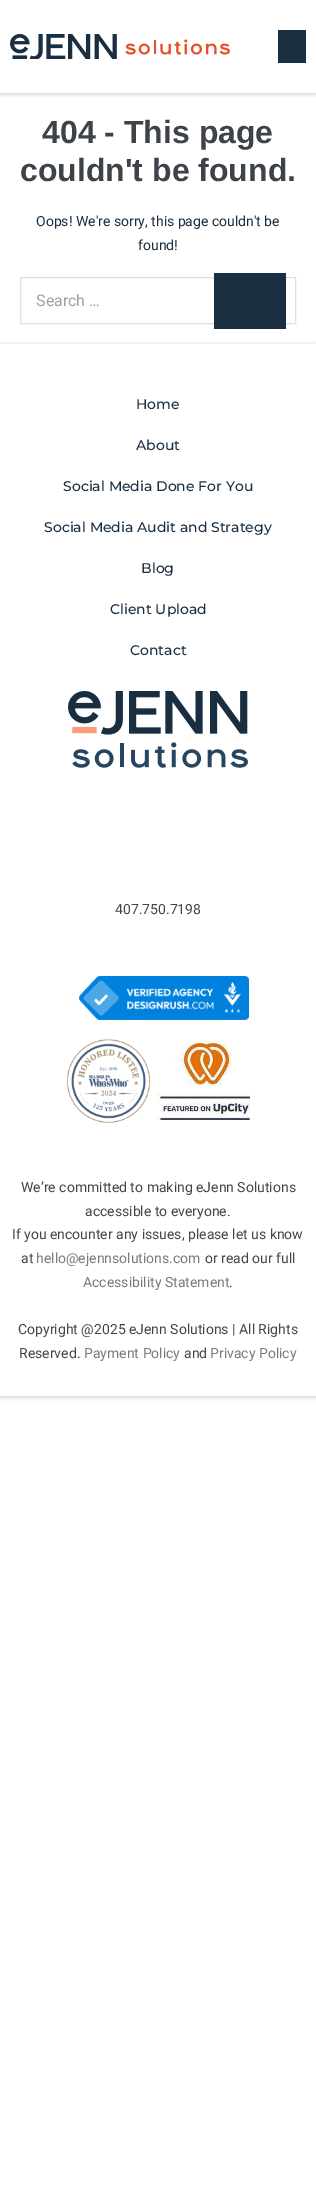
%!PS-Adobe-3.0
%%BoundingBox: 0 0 316 2185
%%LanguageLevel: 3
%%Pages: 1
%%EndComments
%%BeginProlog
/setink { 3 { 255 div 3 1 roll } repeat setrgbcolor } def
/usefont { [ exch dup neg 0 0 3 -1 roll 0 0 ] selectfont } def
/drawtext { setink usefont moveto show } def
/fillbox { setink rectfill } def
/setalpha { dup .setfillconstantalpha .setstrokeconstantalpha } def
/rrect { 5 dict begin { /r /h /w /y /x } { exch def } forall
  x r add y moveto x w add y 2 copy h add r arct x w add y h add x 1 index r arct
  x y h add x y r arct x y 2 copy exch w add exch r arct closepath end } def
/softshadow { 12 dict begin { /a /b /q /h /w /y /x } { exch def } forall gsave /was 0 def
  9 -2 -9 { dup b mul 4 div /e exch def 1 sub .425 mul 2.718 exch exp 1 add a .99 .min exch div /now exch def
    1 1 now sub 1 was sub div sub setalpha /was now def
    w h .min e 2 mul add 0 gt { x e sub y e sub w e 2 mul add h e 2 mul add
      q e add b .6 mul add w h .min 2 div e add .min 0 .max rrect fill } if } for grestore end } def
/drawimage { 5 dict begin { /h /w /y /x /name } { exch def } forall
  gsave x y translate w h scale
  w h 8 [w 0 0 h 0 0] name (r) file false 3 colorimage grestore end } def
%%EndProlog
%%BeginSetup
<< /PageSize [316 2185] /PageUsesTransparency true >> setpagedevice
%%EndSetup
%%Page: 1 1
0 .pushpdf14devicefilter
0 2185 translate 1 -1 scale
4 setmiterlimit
0 0 316 2185 255 255 255 fillbox
gsave
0 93 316 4 rectclip
0 0 0 setink
0 1 316 93 0 2.5 0.2 softshadow
grestore
(assets/img1.rgb) 10 34 220 25 drawimage
278 30 28 33 26 46 65 fillbox
(404 - This page) 42 143 /LiberationSans-Bold 32 62 67 73 drawtext
(couldn't be found.) 20 181 /LiberationSans-Bold 32 62 67 73 drawtext
(Oops! We're sorry, this page couldn't be) 36 226 /Roboto-Regular 14 26 46 65 drawtext
(found!) 138 250 /Roboto-Regular 14 26 46 65 drawtext
222 222 229 setink
20.5 277.5 275 46 rectstroke
(Search …) 36 306 /Roboto-Regular 16 159 161 164 drawtext
214 273 72 56 26 46 65 fillbox
gsave
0 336 moveto 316 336 lineto 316 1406 lineto 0 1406 lineto closepath 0 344 moveto 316 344 lineto 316 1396 lineto 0 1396 lineto closepath eoclip newpath
0 0 0 setink
0 345 316 1052 0 2.5 0.2 softshadow
grestore
(Home) 136 409 /Montserrat-Medium 14 26 46 65 drawtext
(About) 136 450 /Montserrat-Medium 14 26 46 65 drawtext
(Social Media Done For You) 63 491 /Montserrat-Medium 14 26 46 65 drawtext
(Social Media Audit and Strategy) 44 532 /Montserrat-Medium 14 26 46 65 drawtext
(Blog) 141 573 /Montserrat-Medium 14 26 46 65 drawtext
(Client Upload) 110 614 /Montserrat-Medium 14 26 46 65 drawtext
(Contact) 130 655 /Montserrat-Medium 14 26 46 65 drawtext
(assets/img2.rgb) 68 691 180 77 drawimage
(407.750.7198) 115 914 /Roboto-Regular 14 68 69 69 drawtext
(assets/img3.rgb) 79 976 170 44 drawimage
(assets/img4.rgb) 66 1039 85 84 drawimage
(assets/img5.rgb) 157 1041 93 79 drawimage
(We’re committed to making eJenn Solutions) 21 1192 /Roboto-Regular 14 68 69 69 drawtext
(accessible to everyone.) 85 1216 /Roboto-Regular 14 68 69 69 drawtext
(If you encounter any issues, please let us know) 12 1239 /Roboto-Regular 14 68 69 69 drawtext
(at) 21 1263 /Roboto-Regular 14 68 69 69 drawtext
(hello@ejennsolutions.com) 36 1263 /Roboto-Regular 14 122 122 122 drawtext
(or read our full) 205 1263 /Roboto-Regular 14 68 69 69 drawtext
(Accessibility Statement) 83 1287 /Roboto-Regular 14 122 122 122 drawtext
(.) 229 1287 /Roboto-Regular 14 68 69 69 drawtext
(Copyright @2025 eJenn Solutions | All Rights) 18 1334 /Roboto-Regular 14 68 69 69 drawtext
(Reserved.) 19 1358 /Roboto-Regular 14 68 69 69 drawtext
(Payment Policy) 84 1358 /Roboto-Regular 14 122 122 122 drawtext
(and) 184 1358 /Roboto-Regular 14 68 69 69 drawtext
(Privacy Policy) 210 1358 /Roboto-Regular 14 122 122 122 drawtext
.poppdf14devicefilter showpage
%%EOF
